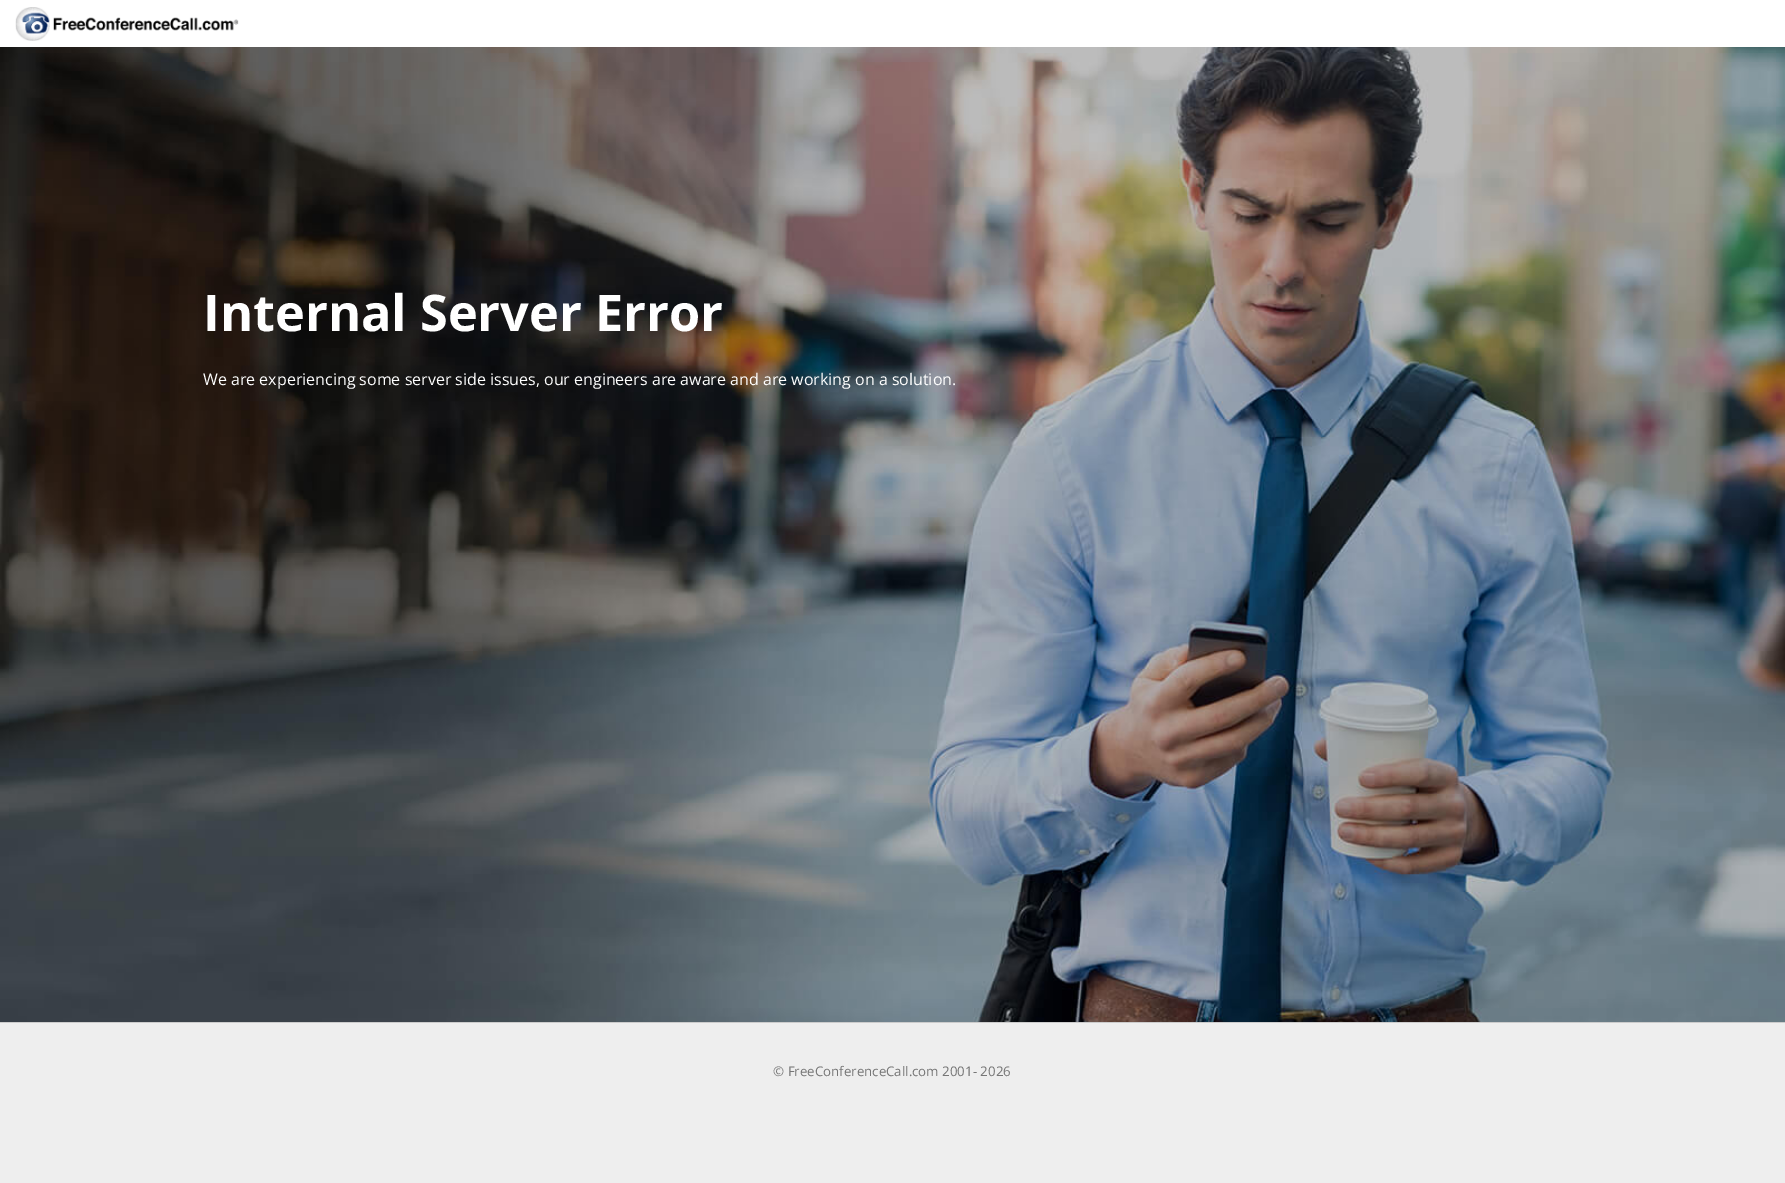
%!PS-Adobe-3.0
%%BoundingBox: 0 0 1785 1183
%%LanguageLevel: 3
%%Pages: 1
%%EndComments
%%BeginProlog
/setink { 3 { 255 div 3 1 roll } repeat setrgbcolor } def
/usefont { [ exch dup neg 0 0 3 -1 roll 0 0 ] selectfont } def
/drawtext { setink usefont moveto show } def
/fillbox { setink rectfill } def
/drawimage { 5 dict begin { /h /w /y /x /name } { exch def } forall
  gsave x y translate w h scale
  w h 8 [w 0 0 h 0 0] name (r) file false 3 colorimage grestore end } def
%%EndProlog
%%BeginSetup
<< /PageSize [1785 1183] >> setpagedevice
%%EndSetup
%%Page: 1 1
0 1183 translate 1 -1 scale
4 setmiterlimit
0 0 1785 1183 238 238 238 fillbox
0 0 1785 47 255 255 255 fillbox
(assets/img1.rgb) 15 7 224 34 drawimage
(assets/img2.rgb) 0 47 1785 975 drawimage
(Internal Server Error) 203 331 /OpenSans-Bold 50.5 255 255 255 drawtext
(We are experiencing some server side issues, our engineers are aware and are working on a solution.) 203 385 /OpenSans-Regular 16 255 255 255 drawtext
0 1022 1785 1 204 204 204 fillbox
(© FreeConferenceCall.com 2001- 2026) 773 1076 /OpenSans-Regular 13.3 118 118 118 drawtext
showpage
%%EOF
